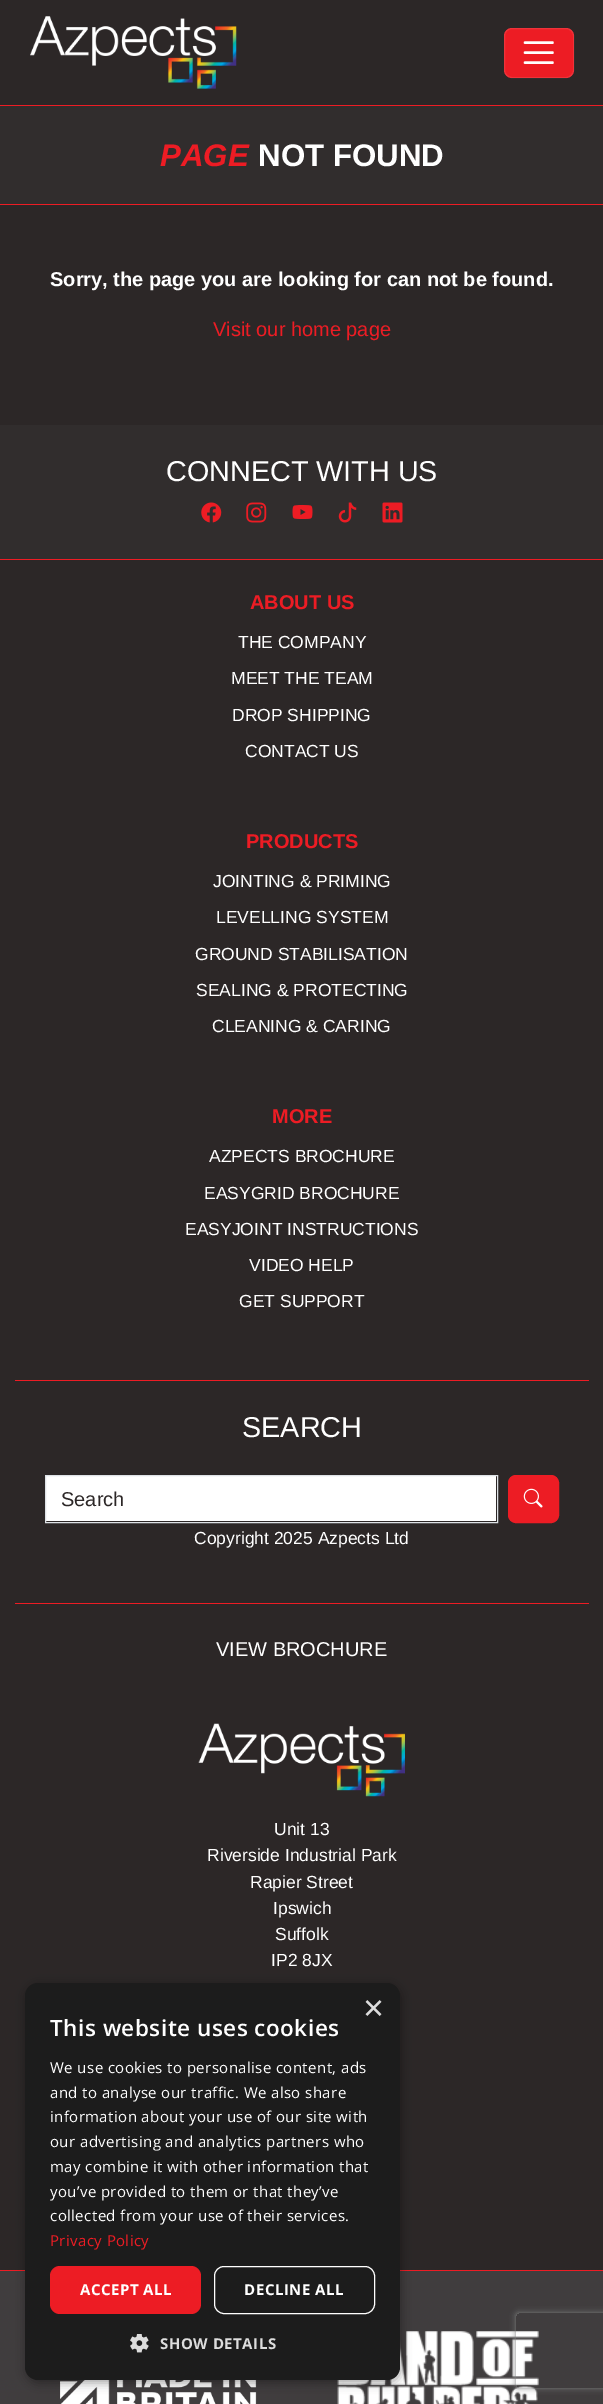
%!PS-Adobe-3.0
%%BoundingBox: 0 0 603 2404
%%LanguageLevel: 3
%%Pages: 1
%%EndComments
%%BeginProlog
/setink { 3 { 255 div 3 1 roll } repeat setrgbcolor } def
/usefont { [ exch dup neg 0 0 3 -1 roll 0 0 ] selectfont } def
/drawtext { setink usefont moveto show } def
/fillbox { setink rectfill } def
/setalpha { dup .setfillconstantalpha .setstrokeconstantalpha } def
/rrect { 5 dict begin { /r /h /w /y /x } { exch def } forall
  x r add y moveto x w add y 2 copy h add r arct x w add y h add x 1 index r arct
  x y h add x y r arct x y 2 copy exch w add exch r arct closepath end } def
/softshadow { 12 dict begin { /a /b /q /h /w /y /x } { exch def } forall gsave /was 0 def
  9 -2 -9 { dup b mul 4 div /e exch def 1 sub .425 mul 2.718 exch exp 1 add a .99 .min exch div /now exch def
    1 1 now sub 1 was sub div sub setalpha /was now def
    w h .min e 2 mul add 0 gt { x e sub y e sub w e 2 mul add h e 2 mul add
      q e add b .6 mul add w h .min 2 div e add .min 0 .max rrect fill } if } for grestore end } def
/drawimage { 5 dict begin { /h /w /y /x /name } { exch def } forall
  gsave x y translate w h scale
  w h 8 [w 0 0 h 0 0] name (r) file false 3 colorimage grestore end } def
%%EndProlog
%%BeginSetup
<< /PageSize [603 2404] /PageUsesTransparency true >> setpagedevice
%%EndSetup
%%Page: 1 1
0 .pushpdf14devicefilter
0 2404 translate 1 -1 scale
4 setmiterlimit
0 0 603 2404 44 39 39 fillbox
(assets/img1.rgb) 30 16 207 73 drawimage
237 28 36 setink
504 28 70 50 8 rrect fill
0.1 setalpha
255 255 255 setink
504.5 28.5 69 49 7.5 rrect stroke
1 setalpha
2.5 setlinewidth
1 setlinecap
525 42.5 moveto 552.5 42.5 lineto 525 52.5 moveto 552.5 52.5 lineto 525 62.5 moveto 552.5 62.5 lineto stroke
0 106 603 98 49 45 45 fillbox
0 105 603 1 237 28 36 fillbox
0 204 603 1 237 28 36 fillbox
(PAGE) 160 166 /LiberationSans-BoldItalic 31.25 237 28 36 drawtext
(NOT FOUND) 258 166 /LiberationSans-Bold 31.25 255 255 255 drawtext
(Sorry, the page you are looking for can not be found.) 50 286 /LiberationSans-Bold 20 255 255 255 drawtext
(Visit our home page) 213 336 /LiberationSans-Regular 20 237 28 36 drawtext
0 425 603 134 49 45 45 fillbox
(CONNECT WITH US) 166 481 /LiberationSans-Regular 28.75 255 255 255 drawtext
(assets/img2.rgb) 201 502 21 21 drawimage
(assets/img3.rgb) 246 502 21 21 drawimage
(assets/img4.rgb) 292 504 21 15 drawimage
(assets/img5.rgb) 338 502 19 21 drawimage
(assets/img6.rgb) 382 502 21 21 drawimage
0 559 603 1 237 28 36 fillbox
0 2270 603 1 237 28 36 fillbox
15 1380 574 1 237 28 36 fillbox
(ABOUT US) 250 609 /LiberationSans-Bold 20 237 28 36 drawtext
(THE COMPANY) 238 648 /LiberationSans-Regular 17.5 255 255 255 drawtext
(MEET THE TEAM) 231 684 /LiberationSans-Regular 17.5 255 255 255 drawtext
(DROP SHIPPING) 232 721 /LiberationSans-Regular 17.5 255 255 255 drawtext
(CONTACT US) 245 757 /LiberationSans-Regular 17.5 255 255 255 drawtext
(PRODUCTS) 246 848 /LiberationSans-Bold 20 237 28 36 drawtext
(JOINTING & PRIMING) 213 887 /LiberationSans-Regular 17.5 255 255 255 drawtext
(LEVELLING SYSTEM) 216 923 /LiberationSans-Regular 17.5 255 255 255 drawtext
(GROUND STABILISATION) 195 960 /LiberationSans-Regular 17.5 255 255 255 drawtext
(SEALING & PROTECTING) 196 996 /LiberationSans-Regular 17.5 255 255 255 drawtext
(CLEANING & CARING) 212 1032 /LiberationSans-Regular 17.5 255 255 255 drawtext
(MORE) 272 1123 /LiberationSans-Bold 20 237 28 36 drawtext
(AZPECTS BROCHURE) 209 1162 /LiberationSans-Regular 17.5 255 255 255 drawtext
(EASYGRID BROCHURE) 204 1199 /LiberationSans-Regular 17.5 255 255 255 drawtext
(EASYJOINT INSTRUCTIONS) 185 1235 /LiberationSans-Regular 17.5 255 255 255 drawtext
(VIDEO HELP) 249 1271 /LiberationSans-Regular 17.5 255 255 255 drawtext
(GET SUPPORT) 239 1307 /LiberationSans-Regular 17.5 255 255 255 drawtext
15 1603 574 1 237 28 36 fillbox
(SEARCH) 242 1437 /LiberationSans-Regular 28.75 255 255 255 drawtext
46 1476 450 45 255 255 255 fillbox
222 226 230 setink
1 setlinewidth
0 setlinecap
45.5 1475.5 452 47 rectstroke
(Search) 61 1506 /LiberationSans-Regular 20 44 39 39 drawtext
237 28 36 setink
508.5 1475.5 50 47 7.5 rrect gsave fill grestore
stroke
(assets/img7.rgb) 523 1488 20 20 drawimage
(Copyright 2025 Azpects Ltd) 194 1544 /LiberationSans-Regular 17.5 255 255 255 drawtext
(VIEW BROCHURE) 216 1656 /LiberationSans-Regular 20 255 255 255 drawtext
(assets/img8.rgb) 198 1723 207 74 drawimage
(Unit 13) 274 1835 /LiberationSans-Regular 17.5 255 255 255 drawtext
(Riverside Industrial Park) 207 1861 /LiberationSans-Regular 17.5 255 255 255 drawtext
(Rapier Street) 250 1888 /LiberationSans-Regular 17.5 255 255 255 drawtext
(Ipswich) 273 1914 /LiberationSans-Regular 17.5 255 255 255 drawtext
(Suffolk) 275 1940 /LiberationSans-Regular 17.5 255 255 255 drawtext
(IP2 8JX) 271 1966 /LiberationSans-Regular 17.5 255 255 255 drawtext
0 2271 603 133 64 61 62 fillbox
(assets/img10.rgb) 60 2380 197 24 drawimage
(assets/img11.rgb) 337 2331 202 73 drawimage
0 0 0 setink
26 1985 375 398 13 5 0.35 softshadow
28 28 28 setink
25 1983 375 397 13 rrect fill
(×) 363 2020 /LiberationSans-Regular 36 221 221 221 drawtext
/OpenSans-SemiBold 22.5 usefont
255 255 255 setink
50 2036 moveto 0.5 0 (This website uses cookies) ashow
/OpenSans-Regular 15 usefont
50 2073 moveto 0.4 0 (We use cookies to personalise content, ads) ashow
50 2098 moveto 0.4 0 (and to analyse our traffic. We also share) ashow
50 2122 moveto 0.4 0 (information about your use of our site with) ashow
50 2147 moveto 0.4 0 (our advertising and analytics partners who) ashow
50 2172 moveto 0.4 0 (may combine it with other information that) ashow
50 2197 moveto 0.4 0 (you’ve provided to them or that they’ve) ashow
50 2221 moveto 0.4 0 (collected from your use of their services.) ashow
237 28 36 setink
50 2246 moveto 0.4 0 (Privacy Policy) ashow
50 2266 151 48 10 rrect fill
/OpenSans-Bold 15 usefont
255 255 255 setink
80 2295 moveto 0.5 0 (ACCEPT ALL) ashow
214.5 2266.5 160 47 9.5 rrect stroke
244 2295 moveto 0.5 0 (DECLINE ALL) ashow
(assets/img9.rgb) 130 2334 19 19 drawimage
221 221 221 setink
160 2349 moveto 0.5 0 (SHOW DETAILS) ashow
gsave
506 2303 moveto 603 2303 lineto 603 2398 lineto 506 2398 lineto closepath 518.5 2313 moveto 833.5 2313 lineto 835 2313 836 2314 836 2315.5 curveto 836 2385.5 lineto 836 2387 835 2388 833.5 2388 curveto 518.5 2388 lineto 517 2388 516 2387 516 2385.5 curveto 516 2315.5 lineto 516 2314 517 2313 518.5 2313 curveto closepath eoclip newpath
128 128 128 setink
516 2313 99 75 2.5 3 1 softshadow
grestore
.poppdf14devicefilter showpage
%%EOF
